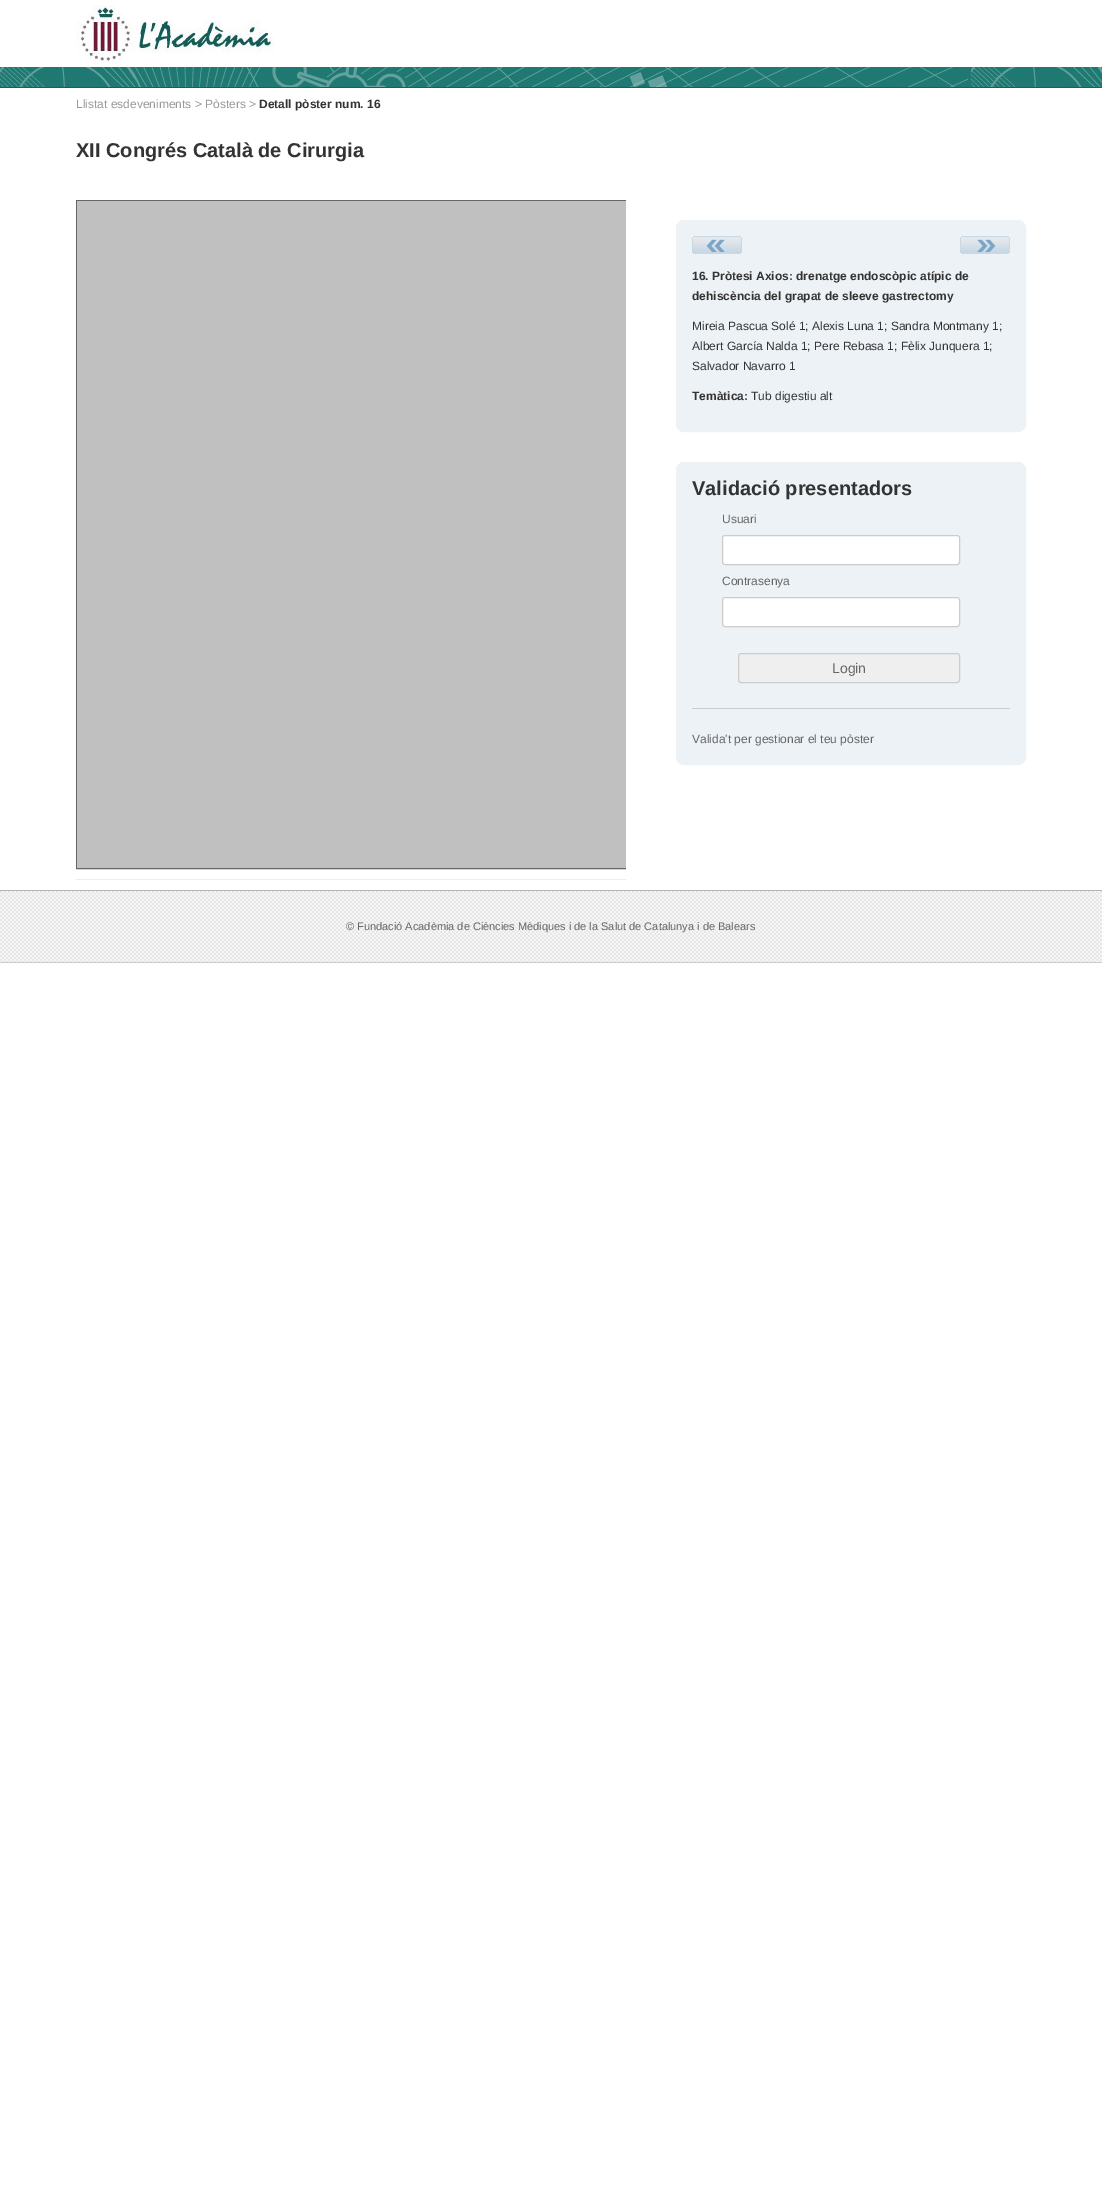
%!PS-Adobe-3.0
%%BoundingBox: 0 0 1102 2197
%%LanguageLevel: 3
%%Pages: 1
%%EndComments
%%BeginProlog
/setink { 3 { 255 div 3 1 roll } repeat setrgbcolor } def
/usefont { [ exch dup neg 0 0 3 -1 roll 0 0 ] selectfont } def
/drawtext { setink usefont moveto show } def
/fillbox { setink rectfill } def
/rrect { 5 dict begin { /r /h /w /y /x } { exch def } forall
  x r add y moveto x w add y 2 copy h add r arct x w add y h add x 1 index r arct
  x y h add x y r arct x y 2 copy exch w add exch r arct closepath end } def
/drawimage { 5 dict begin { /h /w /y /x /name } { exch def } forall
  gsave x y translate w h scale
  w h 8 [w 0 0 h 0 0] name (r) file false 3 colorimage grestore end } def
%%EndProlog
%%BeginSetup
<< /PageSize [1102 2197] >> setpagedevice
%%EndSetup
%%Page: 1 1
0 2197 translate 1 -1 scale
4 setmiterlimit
0 0 1102 2197 255 255 255 fillbox
0 87 1102 1 35 92 86 fillbox
(assets/img1.rgb) 76 5 199 57 drawimage
(assets/img2.rgb) 0 67 1102 20 drawimage
(Llistat esdeveniments > Pòsters >) 76 108 /LiberationSans-Regular 12 153 153 153 drawtext
(Detall pòster num. 16) 259 108 /LiberationSans-Bold 12 51 51 51 drawtext
(XII Congrés Català de Cirurgia) 76 157 /LiberationSans-Bold 20 51 51 51 drawtext
76 879 550 1 237 237 237 fillbox
gsave
76 190 550 689 rectclip
102 102 102 setink
76.5 200.5 551 668 rectstroke
grestore
77 201 549 667 192 192 192 fillbox
237 242 246 setink
676.5 220.5 349 211 7.5 rrect gsave fill grestore
stroke
(assets/img3.rgb) 692 236 50 18 drawimage
(assets/img4.rgb) 960 236 50 18 drawimage
(16. Pròtesi Axios: drenatge endoscòpic atípic de) 692 280 /LiberationSans-Bold 12 51 51 51 drawtext
(dehiscència del grapat de sleeve gastrectomy) 692 300 /LiberationSans-Bold 12 51 51 51 drawtext
(Mireia Pascua Solé 1; Alexis Luna 1; Sandra Montmany 1;) 692 330 /LiberationSans-Regular 12 51 51 51 drawtext
(Albert García Nalda 1; Pere Rebasa 1; Fèlix Junquera 1;) 692 350 /LiberationSans-Regular 12 51 51 51 drawtext
(Salvador Navarro 1) 692 370 /LiberationSans-Regular 12 51 51 51 drawtext
(Temàtica:) 692 400 /LiberationSans-Bold 12 51 51 51 drawtext
(Tub digestiu alt) 751 400 /LiberationSans-Regular 12 51 51 51 drawtext
237 242 246 setink
676.5 462.5 349 302 7.5 rrect gsave fill grestore
stroke
(Validació presentadors) 692 495 /LiberationSans-Bold 20 51 51 51 drawtext
(Usuari) 722 523 /LiberationSans-Regular 12 102 102 102 drawtext
255 255 255 setink
722.5 535.5 237 29 2.5 rrect gsave fill grestore
204 204 204 setink
stroke
(Contrasenya) 722 585 /LiberationSans-Regular 12 102 102 102 drawtext
255 255 255 setink
722.5 597.5 237 29 2.5 rrect gsave fill grestore
204 204 204 setink
stroke
239 239 239 setink
738.5 653.5 221 29 2.5 rrect gsave fill grestore
204 204 204 setink
stroke
(Login) 832 673 /LiberationSans-Regular 14 102 102 102 drawtext
692 708 318 1 204 204 204 fillbox
(Valida't per gestionar el teu pòster) 692 743 /LiberationSans-Regular 12 102 102 102 drawtext
(assets/img5.rgb) 0 891 1102 71 drawimage
0 890 1102 1 179 179 179 fillbox
0 962 1102 1 204 204 204 fillbox
(© Fundació Acadèmia de Ciències Mèdiques i de la Salut de Catalunya i de Balears) 346 930 /LiberationSans-Regular 11 102 102 102 drawtext
showpage
%%EOF
